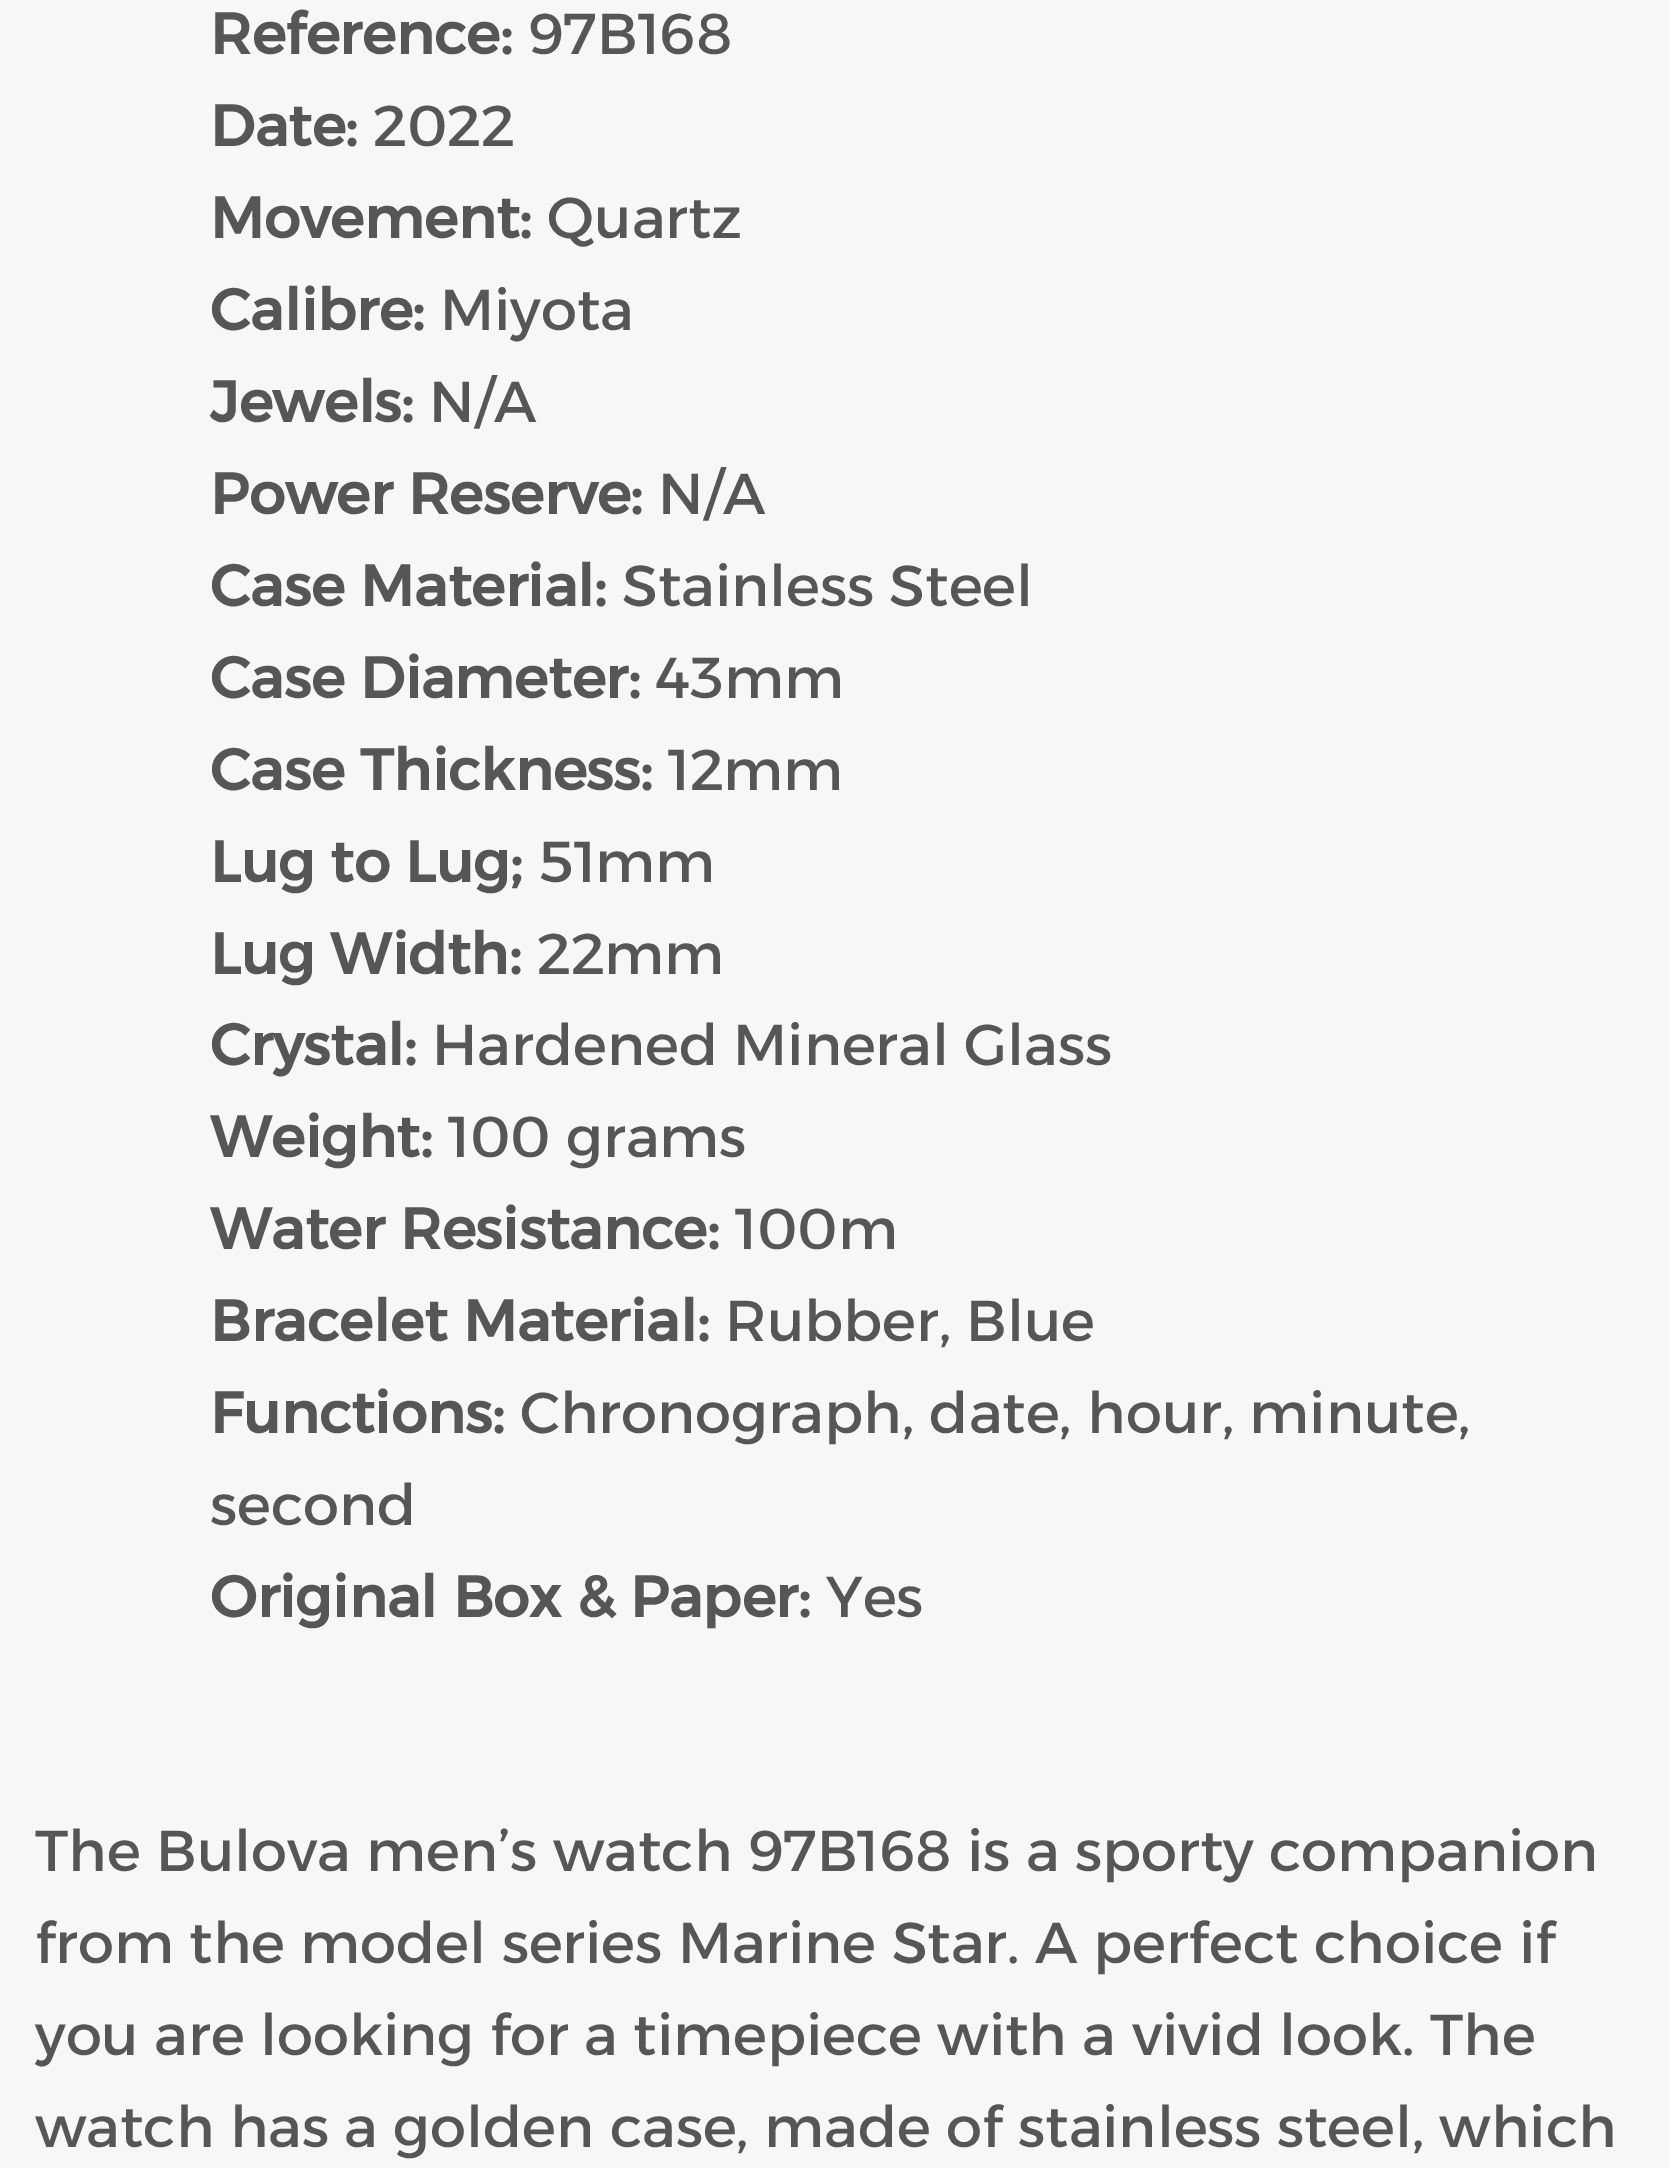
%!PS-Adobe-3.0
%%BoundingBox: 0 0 1669 2168
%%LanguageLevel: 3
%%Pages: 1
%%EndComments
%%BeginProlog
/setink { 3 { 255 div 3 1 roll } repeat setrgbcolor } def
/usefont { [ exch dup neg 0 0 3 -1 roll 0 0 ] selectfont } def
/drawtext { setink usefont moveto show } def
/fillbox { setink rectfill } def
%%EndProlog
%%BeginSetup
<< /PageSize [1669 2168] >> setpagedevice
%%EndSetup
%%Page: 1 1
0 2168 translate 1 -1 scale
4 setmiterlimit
0 0 1669 2168 247 247 247 fillbox
(Reference:) 210 54 /Alexandria-Bold 57.45 86 86 86 drawtext
(97B168) 528 54 /Alexandria-Regular 57.45 86 86 86 drawtext
(Date:) 210 146 /Alexandria-Bold 57.45 86 86 86 drawtext
(2022) 373 146 /Alexandria-Regular 57.45 86 86 86 drawtext
(Movement:) 210 238 /Alexandria-Bold 57.45 86 86 86 drawtext
(Quartz) 547 238 /Alexandria-Regular 57.45 86 86 86 drawtext
(Calibre:) 210 330 /Alexandria-Bold 57.45 86 86 86 drawtext
(Miyota) 440 330 /Alexandria-Regular 57.45 86 86 86 drawtext
(Jewels:) 210 422 /Alexandria-Bold 57.45 86 86 86 drawtext
(N/A) 429 422 /Alexandria-Regular 57.45 86 86 86 drawtext
(Power Reserve:) 210 514 /Alexandria-Bold 57.45 86 86 86 drawtext
(N/A) 658 514 /Alexandria-Regular 57.45 86 86 86 drawtext
(Case Material:) 210 606 /Alexandria-Bold 57.45 86 86 86 drawtext
(Stainless Steel) 622 606 /Alexandria-Regular 57.45 86 86 86 drawtext
(Case Diameter:) 210 698 /Alexandria-Bold 57.45 86 86 86 drawtext
(43mm) 656 698 /Alexandria-Regular 57.45 86 86 86 drawtext
(Case Thickness:) 210 790 /Alexandria-Bold 57.45 86 86 86 drawtext
(12mm) 668 790 /Alexandria-Regular 57.45 86 86 86 drawtext
(Lug to Lug;) 210 882 /Alexandria-Bold 57.45 86 86 86 drawtext
(51mm) 538 882 /Alexandria-Regular 57.45 86 86 86 drawtext
(Lug Width:) 210 974 /Alexandria-Bold 57.45 86 86 86 drawtext
(22mm) 537 974 /Alexandria-Regular 57.45 86 86 86 drawtext
(Crystal:) 210 1065 /Alexandria-Bold 57.45 86 86 86 drawtext
(Hardened Mineral Glass) 432 1065 /Alexandria-Regular 57.45 86 86 86 drawtext
(Weight:) 210 1157 /Alexandria-Bold 57.45 86 86 86 drawtext
(100 grams) 448 1157 /Alexandria-Regular 57.45 86 86 86 drawtext
(Water Resistance:) 210 1249 /Alexandria-Bold 57.45 86 86 86 drawtext
(100m) 735 1249 /Alexandria-Regular 57.45 86 86 86 drawtext
(Bracelet Material:) 210 1341 /Alexandria-Bold 57.45 86 86 86 drawtext
(Rubber, Blue) 725 1341 /Alexandria-Regular 57.45 86 86 86 drawtext
(Functions:) 210 1433 /Alexandria-Bold 57.45 86 86 86 drawtext
(Chronograph, date, hour, minute,) 520 1433 /Alexandria-Regular 57.45 86 86 86 drawtext
(second) 210 1525 /Alexandria-Regular 57.45 86 86 86 drawtext
(Original Box & Paper:) 210 1617 /Alexandria-Bold 57.45 86 86 86 drawtext
(Yes) 826 1617 /Alexandria-Regular 57.45 86 86 86 drawtext
(The Bulova men’s watch 97B168 is a sporty companion) 35 1871 /Alexandria-Regular 57.45 86 86 86 drawtext
(from the model series Marine Star. A perfect choice if) 35 1963 /Alexandria-Regular 57.45 86 86 86 drawtext
(you are looking for a timepiece with a vivid look. The) 35 2055 /Alexandria-Regular 57.45 86 86 86 drawtext
(watch has a golden case, made of stainless steel, which) 35 2147 /Alexandria-Regular 57.45 86 86 86 drawtext
showpage
%%EOF
